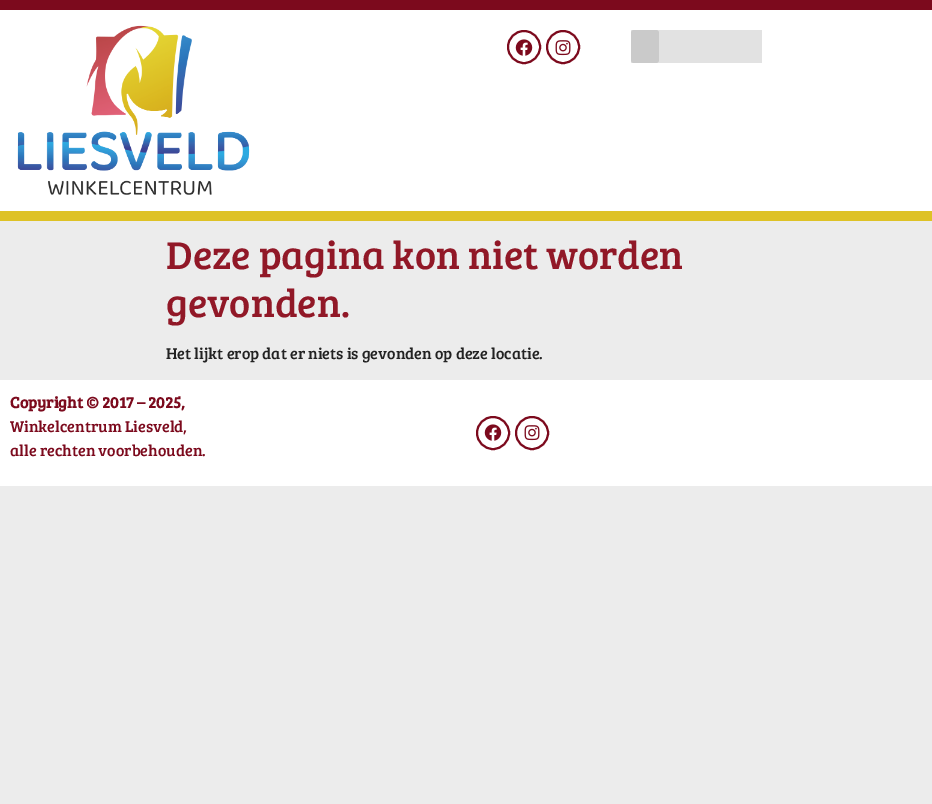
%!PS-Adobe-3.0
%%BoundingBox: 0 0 932 804
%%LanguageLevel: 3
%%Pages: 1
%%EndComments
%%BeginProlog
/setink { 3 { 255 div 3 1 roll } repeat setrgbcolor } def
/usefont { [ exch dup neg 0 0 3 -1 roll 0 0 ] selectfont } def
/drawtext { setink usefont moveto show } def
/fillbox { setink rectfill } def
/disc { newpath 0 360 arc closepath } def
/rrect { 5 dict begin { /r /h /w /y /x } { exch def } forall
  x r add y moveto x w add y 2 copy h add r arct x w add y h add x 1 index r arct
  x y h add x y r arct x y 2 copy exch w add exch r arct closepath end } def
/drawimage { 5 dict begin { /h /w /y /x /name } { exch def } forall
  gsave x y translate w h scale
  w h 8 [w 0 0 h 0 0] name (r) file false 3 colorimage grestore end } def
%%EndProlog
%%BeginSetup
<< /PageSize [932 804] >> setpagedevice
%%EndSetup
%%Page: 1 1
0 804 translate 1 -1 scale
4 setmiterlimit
0 0 932 804 236 236 236 fillbox
0 10 932 201 255 255 255 fillbox
0 0 932 10 124 10 29 fillbox
(assets/img1.rgb) 17 25 233 170 drawimage
2 setlinewidth
524 47 16 disc stroke
(assets/img2.rgb) 515 39 18 17 drawimage
563 47 16 disc stroke
(assets/img3.rgb) 555 40 16 16 drawimage
631 30 131 33 226 226 226 fillbox
202 202 202 setink
631 30 28 33 3 rrect fill
0 211 932 10 222 194 38 fillbox
(Deze pagina kon niet worden) 166 269 /BreeSerif-Regular 40 145 24 39 drawtext
(gevonden.) 166 317 /BreeSerif-Regular 40 145 24 39 drawtext
(Het lijkt erop dat er niets is gevonden op deze locatie.) 166 359 /BreeSerif-Regular 16 34 34 34 drawtext
0 380 932 106 255 255 255 fillbox
(Copyright © 2017 – 2025,) 10 408 /BreeSerif-Bold 16 124 10 29 drawtext
(Winkelcentrum Liesveld,) 10 432 /BreeSerif-Regular 16 124 10 29 drawtext
(alle rechten voorbehouden.) 10 456 /BreeSerif-Regular 16 124 10 29 drawtext
493 433 16 disc stroke
(assets/img2.rgb) 484 424 18 17 drawimage
532 433 16 disc stroke
(assets/img3.rgb) 524 425 16 16 drawimage
showpage
%%EOF
